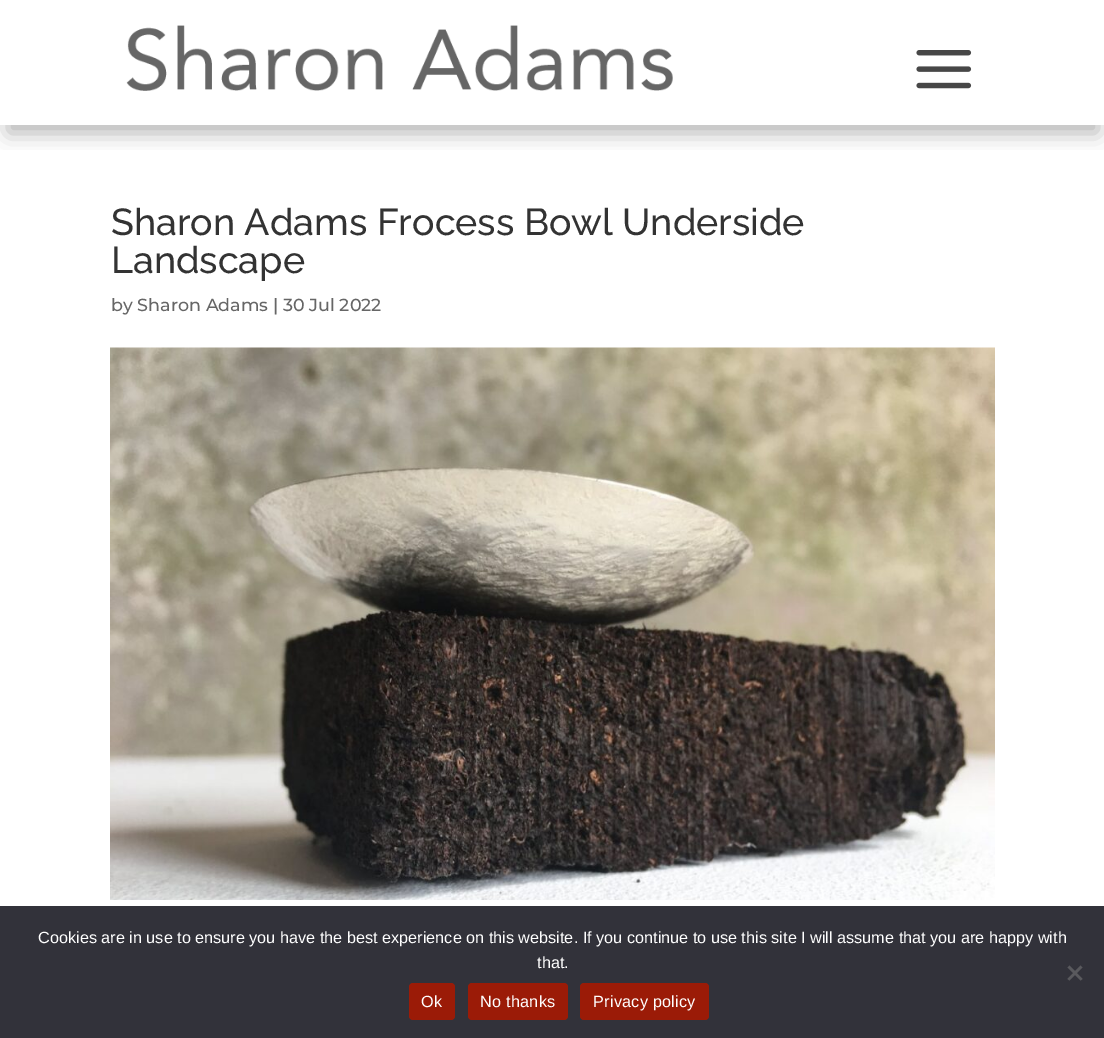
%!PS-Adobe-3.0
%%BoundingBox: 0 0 1104 1038
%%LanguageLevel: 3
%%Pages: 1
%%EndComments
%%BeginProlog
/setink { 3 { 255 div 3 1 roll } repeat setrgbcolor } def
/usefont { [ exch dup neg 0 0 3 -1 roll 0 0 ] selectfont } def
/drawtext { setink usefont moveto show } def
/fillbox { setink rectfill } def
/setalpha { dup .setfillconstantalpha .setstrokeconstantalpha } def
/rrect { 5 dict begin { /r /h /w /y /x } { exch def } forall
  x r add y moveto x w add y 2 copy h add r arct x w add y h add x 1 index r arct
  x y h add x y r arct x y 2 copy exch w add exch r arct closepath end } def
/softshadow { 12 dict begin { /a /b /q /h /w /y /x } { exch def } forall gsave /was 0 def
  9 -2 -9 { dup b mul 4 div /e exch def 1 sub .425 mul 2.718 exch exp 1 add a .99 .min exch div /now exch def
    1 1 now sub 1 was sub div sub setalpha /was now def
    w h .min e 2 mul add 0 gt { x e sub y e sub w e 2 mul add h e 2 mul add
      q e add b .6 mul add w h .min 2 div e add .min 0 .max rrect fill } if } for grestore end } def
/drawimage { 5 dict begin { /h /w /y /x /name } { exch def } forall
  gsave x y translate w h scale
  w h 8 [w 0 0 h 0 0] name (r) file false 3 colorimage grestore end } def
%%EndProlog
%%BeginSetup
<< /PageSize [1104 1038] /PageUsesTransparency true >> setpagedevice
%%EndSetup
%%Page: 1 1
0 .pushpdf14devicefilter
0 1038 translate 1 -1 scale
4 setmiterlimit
0 0 1104 1038 255 255 255 fillbox
gsave
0 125 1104 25 rectclip
0 0 0 setink
8 29 1090 104 0 11 0.3 softshadow
grestore
(assets/img1.rgb) 126 25 547 66 drawimage
(assets/img2.rgb) 916 50 56 39 drawimage
(Sharon Adams Frocess Bowl Underside) 111 235 /Raleway-Thin 37.5 51 51 51 drawtext
(Landscape) 111 273 /Raleway-Thin 37.5 51 51 51 drawtext
(by Sharon Adams | 30 Jul 2022) 111 311 /Montserrat-Thin 17.5 102 102 102 drawtext
(assets/img3.rgb) 110 347 885 553 drawimage
0 906 1104 132 50 50 58 fillbox
(Cookies are in use to ensure you have the best experience on this website. If you continue to use this site I will assume that you are happy with) 38 943 /LiberationSans-Regular 16.25 255 255 255 drawtext
(that.) 537 968 /LiberationSans-Regular 16.25 255 255 255 drawtext
89 89 93 setink
1080.5 965.5 moveto 1082.5 967.5 lineto 1069.5 980.5 lineto 1067.5 979 lineto closepath fill
1067.5 967.5 moveto 1069.5 965.5 lineto 1082.5 979 lineto 1080.5 980.5 lineto closepath fill
155 27 7 setink
409 983 46 37 4 rrect fill
255 255 255 setink
421 1007 moveto 0.25 0 (Ok) ashow
155 27 7 setink
468 983 100 37 4 rrect fill
255 255 255 setink
480 1007 moveto 0.25 0 (No thanks) ashow
155 27 7 setink
580 983 129 37 4 rrect fill
255 255 255 setink
593 1007 moveto 0.25 0 (Privacy policy) ashow
.poppdf14devicefilter showpage
%%EOF
